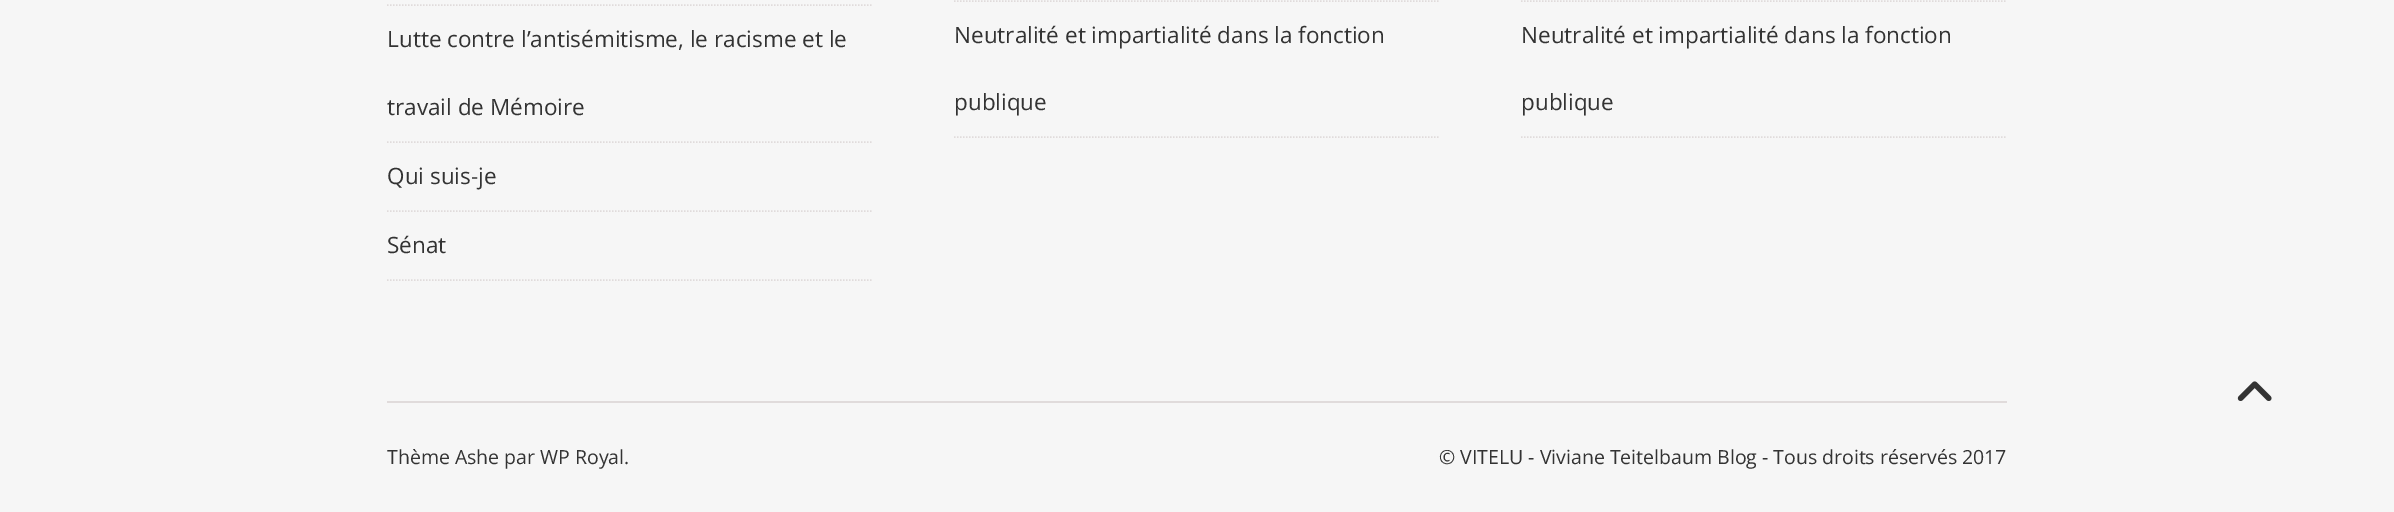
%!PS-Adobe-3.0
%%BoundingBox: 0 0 2394 512
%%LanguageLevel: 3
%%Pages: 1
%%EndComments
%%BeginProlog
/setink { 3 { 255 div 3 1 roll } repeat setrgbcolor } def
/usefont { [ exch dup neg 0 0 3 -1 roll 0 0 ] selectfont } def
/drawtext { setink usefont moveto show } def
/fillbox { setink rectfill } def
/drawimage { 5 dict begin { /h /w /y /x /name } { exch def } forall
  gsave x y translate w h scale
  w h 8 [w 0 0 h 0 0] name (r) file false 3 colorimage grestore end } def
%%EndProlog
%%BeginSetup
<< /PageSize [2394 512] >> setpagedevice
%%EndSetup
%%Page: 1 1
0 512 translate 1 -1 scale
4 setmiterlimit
0 0 2394 512 246 246 246 fillbox
387 401 1620 2 224 219 219 fillbox
1.5 setlinewidth
[1.5 1.5] 0 setdash
387 5 moveto 873 5 lineto stroke
387 142 moveto 873 142 lineto stroke
(Lutte contre l’antisémitisme, le racisme et le) 387 47 /OpenSans-Regular 22.5 51 51 51 drawtext
(travail de Mémoire) 387 115 /OpenSans-Regular 22.5 51 51 51 drawtext
224 219 219 setink
387 211 moveto 873 211 lineto stroke
(Qui suis-je) 387 184 /OpenSans-Regular 22.5 51 51 51 drawtext
224 219 219 setink
387 280 moveto 873 280 lineto stroke
(Sénat) 387 253 /OpenSans-Regular 22.5 51 51 51 drawtext
224 219 219 setink
954 1 moveto 1440 1 lineto stroke
954 137 moveto 1440 137 lineto stroke
(Neutralité et impartialité dans la fonction) 954 43 /OpenSans-Regular 22.5 51 51 51 drawtext
(publique) 954 110 /OpenSans-Regular 22.5 51 51 51 drawtext
224 219 219 setink
1521 1 moveto 2007 1 lineto stroke
1521 137 moveto 2007 137 lineto stroke
(Neutralité et impartialité dans la fonction) 1521 43 /OpenSans-Regular 22.5 51 51 51 drawtext
(publique) 1521 110 /OpenSans-Regular 22.5 51 51 51 drawtext
(Thème Ashe par WP Royal.) 387 464 /OpenSans-Regular 19.5 51 51 51 drawtext
(© VITELU - Viviane Teitelbaum Blog - Tous droits réservés 2017) 1439 464 /OpenSans-Regular 19.5 51 51 51 drawtext
(assets/img1.rgb) 2237 381 35 20 drawimage
showpage
%%EOF
